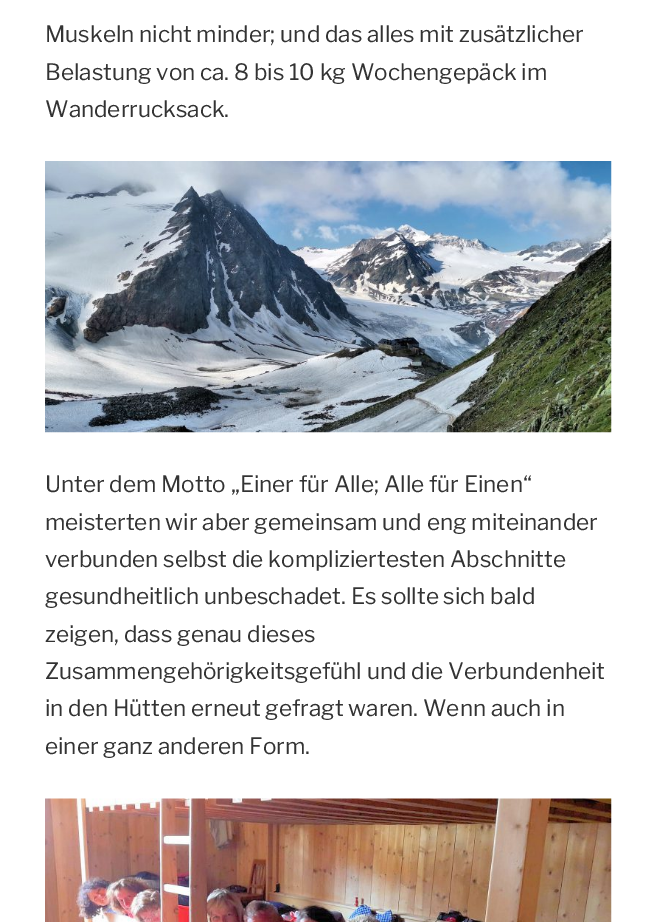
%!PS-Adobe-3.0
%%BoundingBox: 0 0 656 922
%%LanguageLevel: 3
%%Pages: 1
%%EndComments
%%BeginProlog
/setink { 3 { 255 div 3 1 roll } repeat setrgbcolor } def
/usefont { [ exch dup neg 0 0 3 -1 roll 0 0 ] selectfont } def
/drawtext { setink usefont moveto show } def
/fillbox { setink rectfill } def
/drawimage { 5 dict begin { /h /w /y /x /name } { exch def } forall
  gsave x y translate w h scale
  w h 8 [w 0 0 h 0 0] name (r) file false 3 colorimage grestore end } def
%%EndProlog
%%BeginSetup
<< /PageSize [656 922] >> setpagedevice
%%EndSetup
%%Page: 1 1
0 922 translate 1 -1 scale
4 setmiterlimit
0 0 656 922 255 255 255 fillbox
(Muskeln nicht minder; und das alles mit zusätzlicher) 45 42 /LibreFranklin-Thin 22.5 51 51 51 drawtext
(Belastung von ca. 8 bis 10 kg Wochengepäck im) 45 80 /LibreFranklin-Thin 22.5 51 51 51 drawtext
(Wanderrucksack.) 45 117 /LibreFranklin-Thin 22.5 51 51 51 drawtext
(assets/img1.rgb) 45 161 567 272 drawimage
(Unter dem Motto „Einer für Alle; Alle für Einen“) 45 492 /LibreFranklin-Thin 22.5 51 51 51 drawtext
(meisterten wir aber gemeinsam und eng miteinander) 45 530 /LibreFranklin-Thin 22.5 51 51 51 drawtext
(verbunden selbst die kompliziertesten Abschnitte) 45 567 /LibreFranklin-Thin 22.5 51 51 51 drawtext
(gesundheitlich unbeschadet. Es sollte sich bald) 45 604 /LibreFranklin-Thin 22.5 51 51 51 drawtext
(zeigen, dass genau dieses) 45 642 /LibreFranklin-Thin 22.5 51 51 51 drawtext
(Zusammengehörigkeitsgefühl und die Verbundenheit) 45 679 /LibreFranklin-Thin 22.5 51 51 51 drawtext
(in den Hütten erneut gefragt waren. Wenn auch in) 45 716 /LibreFranklin-Thin 22.5 51 51 51 drawtext
(einer ganz anderen Form.) 45 754 /LibreFranklin-Thin 22.5 51 51 51 drawtext
(assets/img2.rgb) 45 798 567 124 drawimage
showpage
%%EOF
